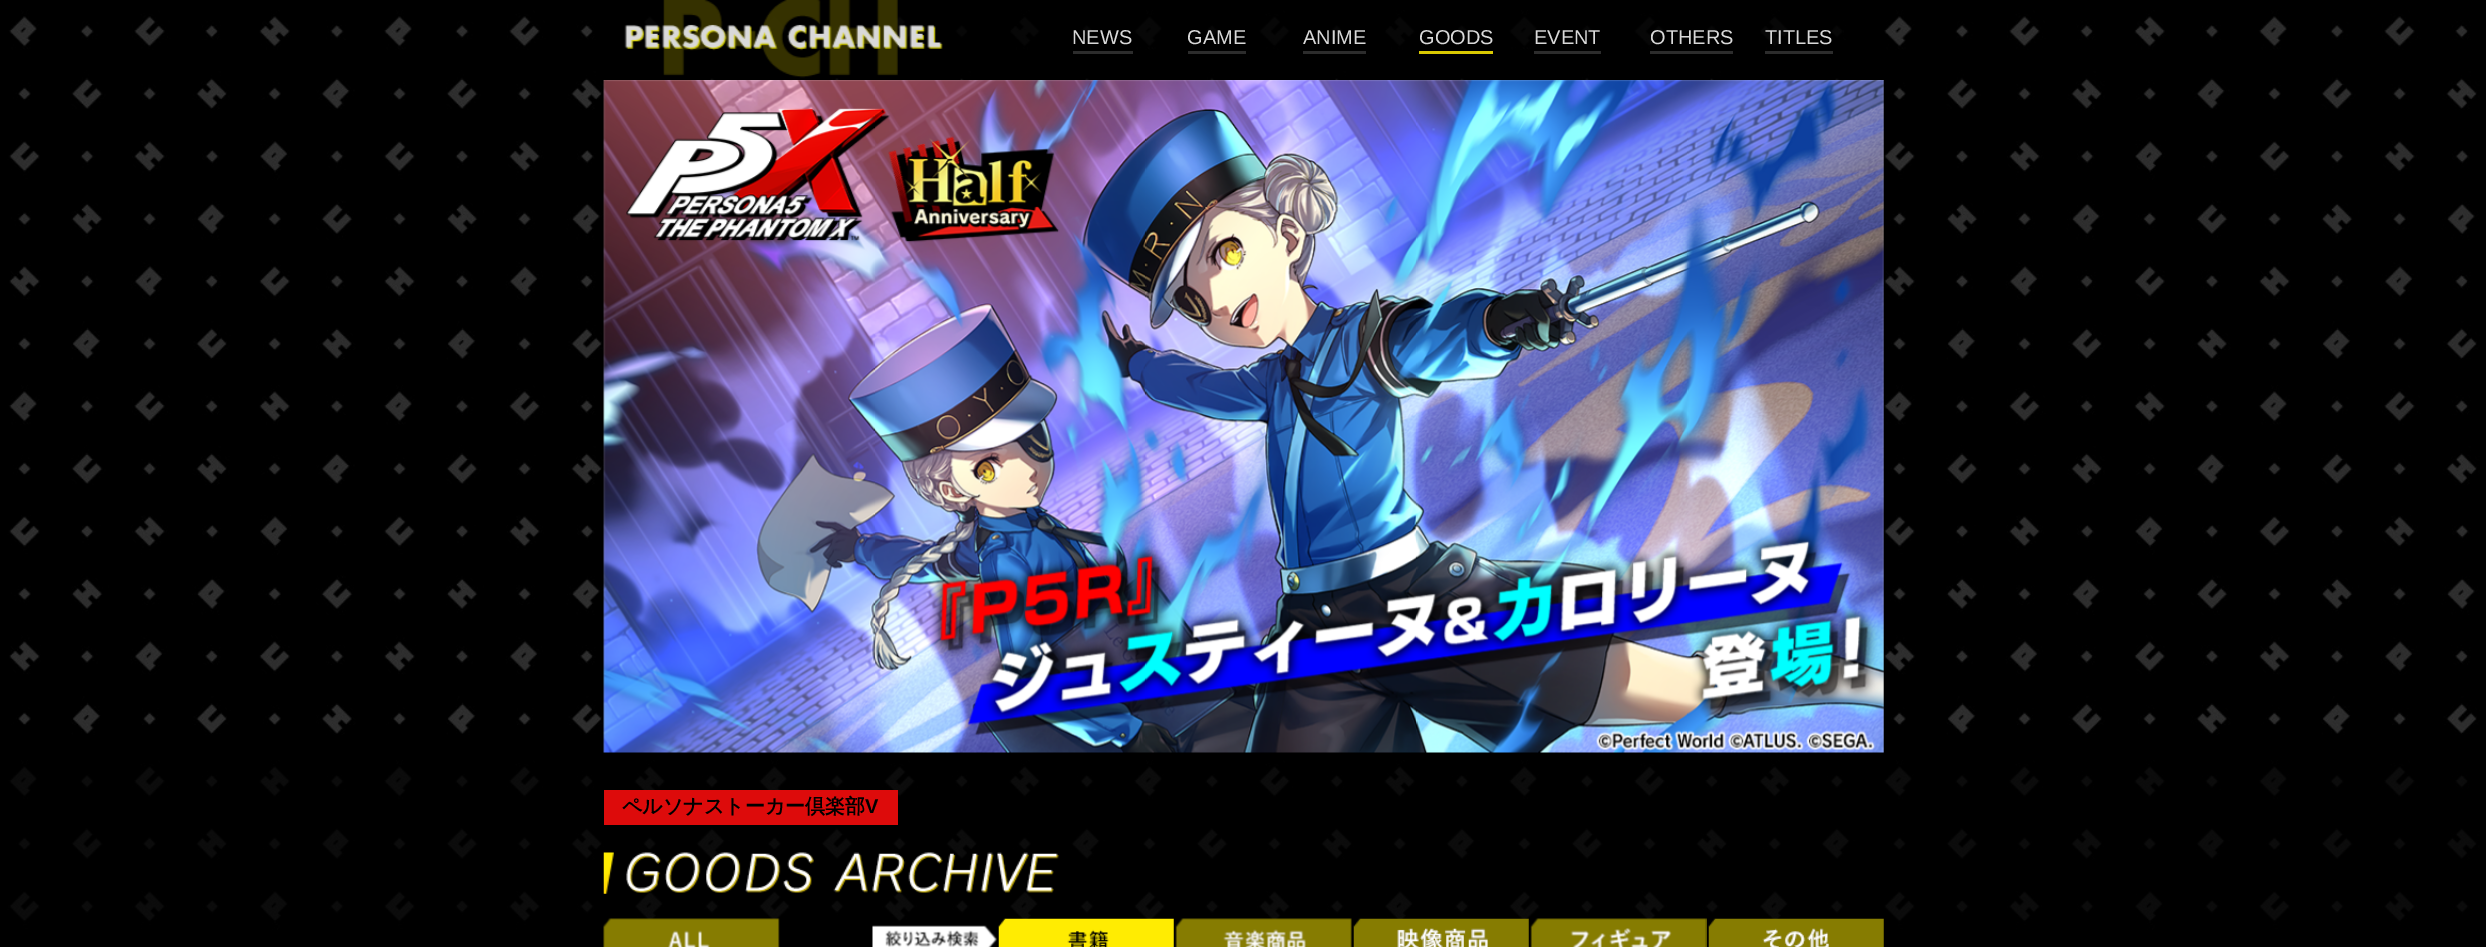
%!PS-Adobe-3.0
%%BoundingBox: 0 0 2486 947
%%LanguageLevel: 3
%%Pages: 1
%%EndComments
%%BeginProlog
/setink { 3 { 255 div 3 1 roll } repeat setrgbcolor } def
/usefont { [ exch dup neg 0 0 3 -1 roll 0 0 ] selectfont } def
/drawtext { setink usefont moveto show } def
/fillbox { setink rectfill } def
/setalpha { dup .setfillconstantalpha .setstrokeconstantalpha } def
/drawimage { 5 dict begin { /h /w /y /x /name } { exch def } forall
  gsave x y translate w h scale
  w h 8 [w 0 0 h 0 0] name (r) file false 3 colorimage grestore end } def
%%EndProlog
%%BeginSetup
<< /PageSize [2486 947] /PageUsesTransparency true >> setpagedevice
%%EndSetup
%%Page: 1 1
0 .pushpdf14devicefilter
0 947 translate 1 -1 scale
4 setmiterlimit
0 0 2486 947 255 255 255 fillbox
(assets/img1.rgb) 0 0 2486 947 drawimage
0.85 setalpha
635 16 1208 31 0 0 0 fillbox
1 setalpha
(assets/img2.rgb) 624 0 319 78 drawimage
(NEWS) 1072 44 /LiberationSans-Regular 20 217 217 217 drawtext
1073 51 60 3 44 44 44 fillbox
(GAME) 1187 44 /LiberationSans-Regular 20 217 217 217 drawtext
1188 51 58 3 44 44 44 fillbox
(ANIME) 1303 44 /LiberationSans-Regular 20 217 217 217 drawtext
1303 51 63 3 44 44 44 fillbox
(GOODS) 1419 44 /LiberationSans-Regular 20 217 217 217 drawtext
1419 51 74 3 217 201 2 fillbox
(EVENT) 1534 44 /LiberationSans-Regular 20 217 217 217 drawtext
1534 51 67 3 44 44 44 fillbox
(OTHERS) 1650 44 /LiberationSans-Regular 20 217 217 217 drawtext
1650 51 83 3 44 44 44 fillbox
(TITLES) 1765 44 /LiberationSans-Regular 20 217 217 217 drawtext
1765 51 68 3 44 44 44 fillbox
(assets/img3.rgb) 603 80 1281 673 drawimage
0.75 setalpha
9 766 2468 156 0 0 0 fillbox
1 setalpha
604 790 294 35 221 11 11 fillbox
(ペルソナストーカー倶楽部) 622 813 /WenQuanYiZenHei-Bold 20 0 0 0 drawtext
(V) 865 813 /LiberationSans-Bold 20 0 0 0 drawtext
(assets/img4.rgb) 603 852 456 42 drawimage
(assets/img5.rgb) 603 918 177 29 drawimage
(assets/img6.rgb) 872 925 125 22 drawimage
(assets/img7.rgb) 998 918 176 29 drawimage
(assets/img8.rgb) 1175 918 177 29 drawimage
(assets/img9.rgb) 1353 918 176 29 drawimage
(assets/img10.rgb) 1530 918 177 29 drawimage
(assets/img11.rgb) 1708 918 176 29 drawimage
.poppdf14devicefilter showpage
%%EOF
